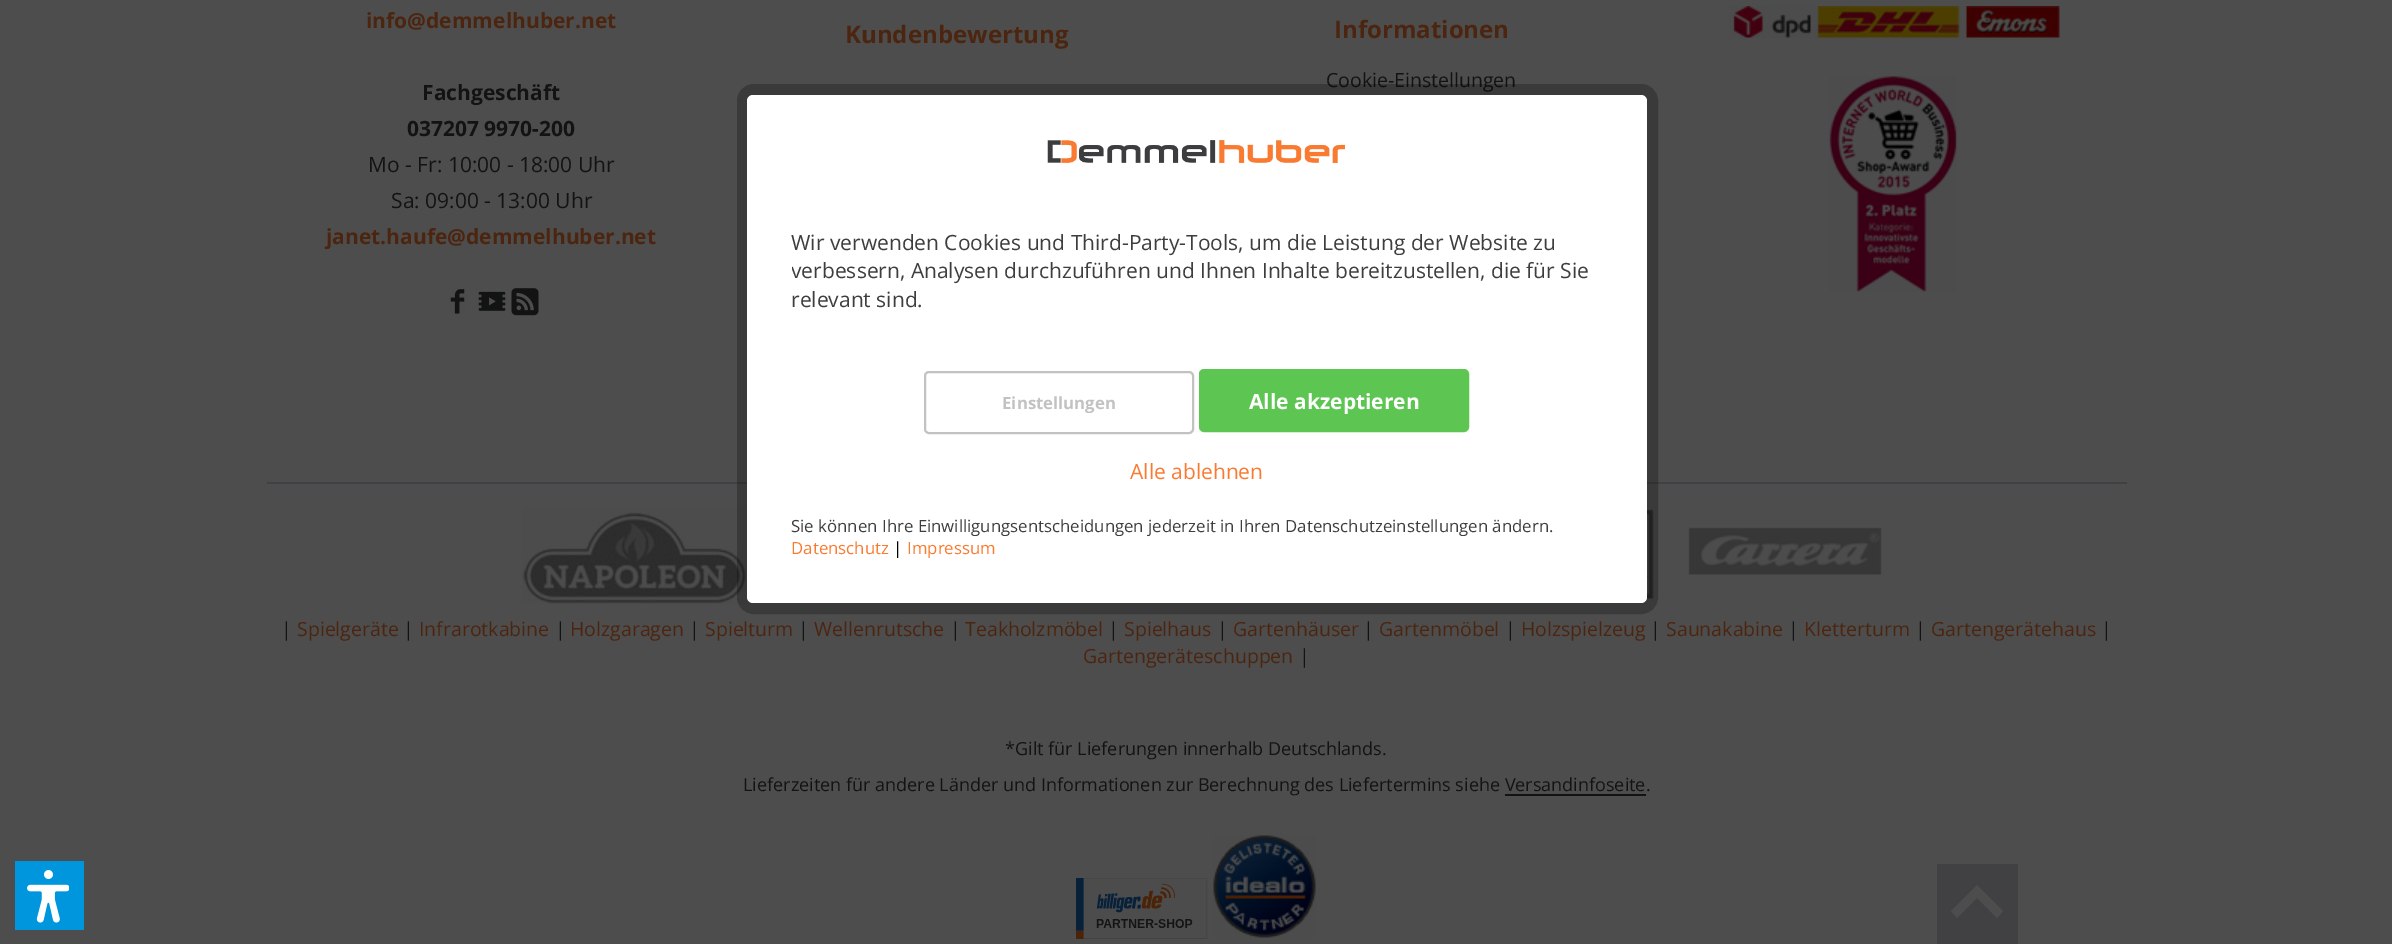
%!PS-Adobe-3.0
%%BoundingBox: 0 0 2392 944
%%LanguageLevel: 3
%%Pages: 1
%%EndComments
%%BeginProlog
/setink { 3 { 255 div 3 1 roll } repeat setrgbcolor } def
/usefont { [ exch dup neg 0 0 3 -1 roll 0 0 ] selectfont } def
/drawtext { setink usefont moveto show } def
/fillbox { setink rectfill } def
/setalpha { dup .setfillconstantalpha .setstrokeconstantalpha } def
/rrect { 5 dict begin { /r /h /w /y /x } { exch def } forall
  x r add y moveto x w add y 2 copy h add r arct x w add y h add x 1 index r arct
  x y h add x y r arct x y 2 copy exch w add exch r arct closepath end } def
/drawimage { 5 dict begin { /h /w /y /x /name } { exch def } forall
  gsave x y translate w h scale
  w h 8 [w 0 0 h 0 0] name (r) file false 3 colorimage grestore end } def
%%EndProlog
%%BeginSetup
<< /PageSize [2392 944] /PageUsesTransparency true >> setpagedevice
%%EndSetup
%%Page: 1 1
0 .pushpdf14devicefilter
0 944 translate 1 -1 scale
4 setmiterlimit
0 0 2392 944 77 77 77 fillbox
267 482 1860 2 65 65 69 fillbox
(info@demmelhuber.net) 366 28 /OpenSans-Bold 21 75 37 15 drawtext
(Fachgeschäft) 422 100 /OpenSans-Bold 21 18 19 19 drawtext
(037207 9970-200) 407 136 /OpenSans-Bold 21 18 19 19 drawtext
(Mo - Fr: 10:00 - 18:00 Uhr) 368 172 /OpenSans-Regular 21 18 19 19 drawtext
(Sa: 09:00 - 13:00 Uhr) 391 208 /OpenSans-Regular 21 18 19 19 drawtext
(janet.haufe@demmelhuber.net) 326 244 /OpenSans-Bold 21 75 37 15 drawtext
(assets/img1.rgb) 450 289 15 25 drawimage
(assets/img2.rgb) 478 291 28 20 drawimage
(assets/img3.rgb) 511 288 28 28 drawimage
(Kundenbewertung) 845 43 /OpenSans-Bold 24 75 37 15 drawtext
(Informationen) 1334 38 /OpenSans-Bold 24 75 37 15 drawtext
(Cookie-Einstellungen) 1326 87 /OpenSans-Regular 19.5 18 19 19 drawtext
(assets/img4.rgb) 1729 6 331 32 drawimage
(assets/img5.rgb) 1829 76 128 216 drawimage
(assets/img6.rgb) 522 507 228 97 drawimage
(assets/img7.rgb) 1646 509 8 90 drawimage
(assets/img8.rgb) 1688 527 194 48 drawimage
(|) 281 636 /OpenSans-Regular 19.5 18 19 19 drawtext
(Spielgeräte) 297 636 /OpenSans-Regular 19.5 75 37 15 drawtext
(|) 403 636 /OpenSans-Regular 19.5 18 19 19 drawtext
(Infrarotkabine) 419 636 /OpenSans-Regular 19.5 75 37 15 drawtext
(|) 555 636 /OpenSans-Regular 19.5 18 19 19 drawtext
(Holzgaragen) 570 636 /OpenSans-Regular 19.5 75 37 15 drawtext
(|) 689 636 /OpenSans-Regular 19.5 18 19 19 drawtext
(Spielturm) 705 636 /OpenSans-Regular 19.5 75 37 15 drawtext
(|) 798 636 /OpenSans-Regular 19.5 18 19 19 drawtext
(Wellenrutsche) 814 636 /OpenSans-Regular 19.5 75 37 15 drawtext
(|) 950 636 /OpenSans-Regular 19.5 18 19 19 drawtext
(Teakholzmöbel) 965 636 /OpenSans-Regular 19.5 75 37 15 drawtext
(|) 1108 636 /OpenSans-Regular 19.5 18 19 19 drawtext
(Spielhaus) 1124 636 /OpenSans-Regular 19.5 75 37 15 drawtext
(|) 1217 636 /OpenSans-Regular 19.5 18 19 19 drawtext
(Gartenhäuser) 1233 636 /OpenSans-Regular 19.5 75 37 15 drawtext
(|) 1363 636 /OpenSans-Regular 19.5 18 19 19 drawtext
(Gartenmöbel) 1379 636 /OpenSans-Regular 19.5 75 37 15 drawtext
(|) 1505 636 /OpenSans-Regular 19.5 18 19 19 drawtext
(Holzspielzeug) 1521 636 /OpenSans-Regular 19.5 75 37 15 drawtext
(|) 1650 636 /OpenSans-Regular 19.5 18 19 19 drawtext
(Saunakabine) 1666 636 /OpenSans-Regular 19.5 75 37 15 drawtext
(|) 1788 636 /OpenSans-Regular 19.5 18 19 19 drawtext
(Kletterturm) 1804 636 /OpenSans-Regular 19.5 75 37 15 drawtext
(|) 1915 636 /OpenSans-Regular 19.5 18 19 19 drawtext
(Gartengerätehaus) 1931 636 /OpenSans-Regular 19.5 75 37 15 drawtext
(|) 2101 636 /OpenSans-Regular 19.5 18 19 19 drawtext
(Gartengeräteschuppen) 1083 663 /OpenSans-Regular 19.5 75 37 15 drawtext
(|) 1299 663 /OpenSans-Regular 19.5 18 19 19 drawtext
(*Gilt für Lieferungen innerhalb Deutschlands.) 1005 755 /OpenSans-Regular 18 18 19 19 drawtext
(Lieferzeiten für andere Länder und Informationen zur Berechnung des Liefertermins siehe Versandinfoseite.) 743 791 /OpenSans-Regular 18 18 19 19 drawtext
1505 794 141 2 18 19 19 fillbox
(assets/img9.rgb) 1076 878 132 61 drawimage
(assets/img10.rgb) 1213 835 103 103 drawimage
0.25 setalpha
0 0 0 setink
11 setlinewidth
742.5 89.5 910 519 11.5 rrect stroke
1 setalpha
255 255 255 setink
747 95 900 508 6 rrect fill
(assets/img11.rgb) 1047 140 298 23 drawimage
(Wir verwenden Cookies und Third-Party-Tools, um die Leistung der Website zu) 791 250 /OpenSans-Regular 21 61 62 63 drawtext
gsave
792 170 810 199 rectclip
(verbessern, Analysen durchzuführen und Ihnen Inhalte bereitzustellen, die für Sie) 791 278 /OpenSans-Regular 21 61 62 63 drawtext
grestore
(relevant sind.) 791 307 /OpenSans-Regular 21 61 62 63 drawtext
194 194 194 setink
2 setlinewidth
925 372 268 61 4 rrect stroke
(Einstellungen) 1002 409 /OpenSans-Bold 16.8 194 194 194 drawtext
93 197 81 setink
1200 370 268 61 4 rrect gsave fill grestore
stroke
(Alle akzeptieren) 1249 409 /OpenSans-Bold 21 255 255 255 drawtext
(Alle ablehnen) 1130 479 /OpenSans-Regular 21 249 122 49 drawtext
(Sie können Ihre Einwilligungsentscheidungen jederzeit in Ihren Datenschutzeinstellungen ändern.) 791 532 /OpenSans-Regular 16.8 61 62 63 drawtext
(Datenschutz) 791 554 /OpenSans-Regular 16.8 249 122 49 drawtext
(|) 893 554 /OpenSans-Regular 16.8 0 0 0 drawtext
(Impressum) 907 554 /OpenSans-Regular 16.8 249 122 49 drawtext
1937 864 81 80 65 65 68 fillbox
77 77 77 setink
1977 885 moveto 2003 911 lineto 1997 918 lineto 1977 898 lineto 1957 918 lineto 1951 911 lineto closepath fill
15 861 69 69 0 150 222 fillbox
(assets/img12.rgb) 27 870 42 53 drawimage
.poppdf14devicefilter showpage
%%EOF
